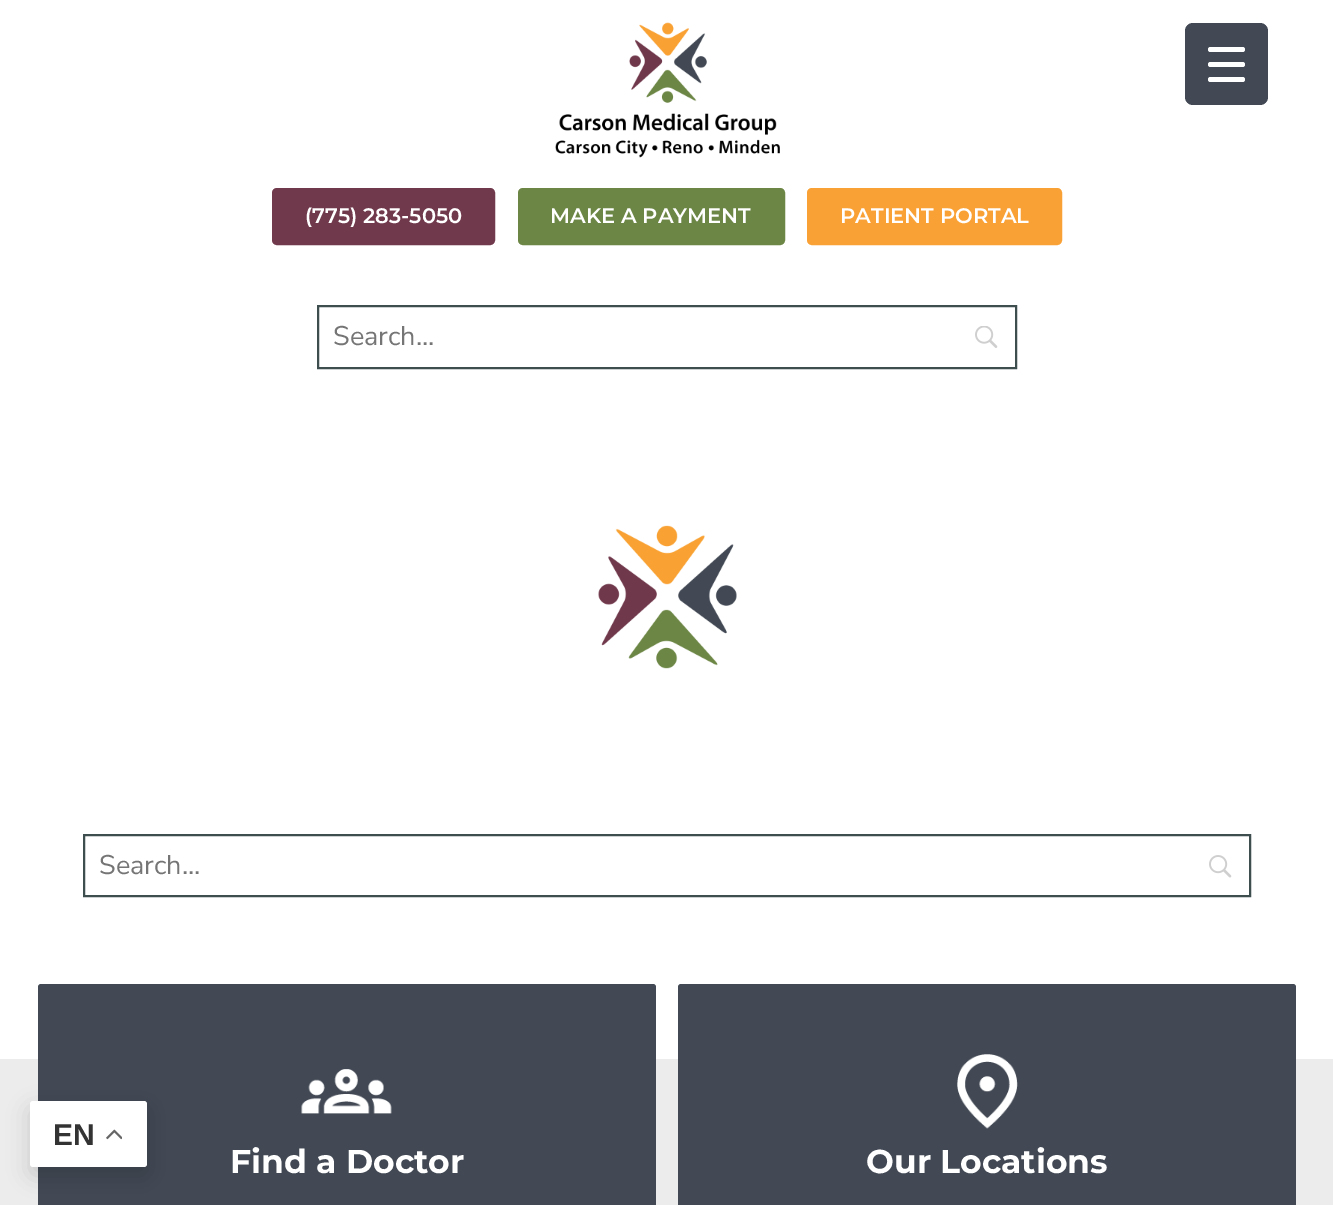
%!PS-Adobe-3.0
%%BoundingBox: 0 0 1333 1205
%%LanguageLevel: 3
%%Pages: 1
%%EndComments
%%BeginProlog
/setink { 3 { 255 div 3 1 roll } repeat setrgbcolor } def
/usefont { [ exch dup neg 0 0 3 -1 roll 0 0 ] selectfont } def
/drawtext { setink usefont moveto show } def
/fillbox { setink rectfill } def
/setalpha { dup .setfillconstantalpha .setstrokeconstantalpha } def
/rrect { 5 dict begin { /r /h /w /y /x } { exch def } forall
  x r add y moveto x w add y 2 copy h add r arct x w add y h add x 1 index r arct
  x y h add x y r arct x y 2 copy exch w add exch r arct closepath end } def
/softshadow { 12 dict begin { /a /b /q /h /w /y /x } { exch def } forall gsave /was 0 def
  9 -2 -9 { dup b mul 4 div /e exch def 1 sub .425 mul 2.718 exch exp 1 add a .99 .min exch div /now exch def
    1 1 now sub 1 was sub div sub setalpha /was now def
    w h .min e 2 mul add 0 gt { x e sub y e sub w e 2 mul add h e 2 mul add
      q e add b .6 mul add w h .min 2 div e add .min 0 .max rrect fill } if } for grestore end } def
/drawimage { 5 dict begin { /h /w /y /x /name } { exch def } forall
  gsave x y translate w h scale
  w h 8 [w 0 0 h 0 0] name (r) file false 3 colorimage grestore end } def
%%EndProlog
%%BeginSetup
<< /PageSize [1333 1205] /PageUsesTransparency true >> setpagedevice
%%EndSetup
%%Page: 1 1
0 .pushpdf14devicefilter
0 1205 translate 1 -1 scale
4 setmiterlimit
0 0 1333 1205 255 255 255 fillbox
66 73 84 setink
1185 23 83 82 8 rrect fill
255 255 255 setink
1208 62 37 5 2.5 rrect fill
1208 47 37 5 2.5 rrect fill
1208 77 37 5 2.5 rrect fill
(assets/img1.rgb) 555 22 225 136 drawimage
112 57 76 setink
273.5 189.5 220 54 3.5 rrect gsave fill grestore
3 setlinewidth
stroke
(\(775\) 283-5050) 305 223 /Montserrat-SemiBold 21 255 255 255 drawtext
108 134 69 setink
519.5 189.5 264 54 3.5 rrect gsave fill grestore
stroke
(MAKE A PAYMENT) 550 223 /Montserrat-SemiBold 21 255 255 255 drawtext
249 161 53 setink
808.5 189.5 252 54 3.5 rrect gsave fill grestore
stroke
(PATIENT PORTAL) 840 223 /Montserrat-SemiBold 21 255 255 255 drawtext
(assets/img2.rgb) 975 326 23 22 drawimage
62 77 77 setink
2 setlinewidth
318 306 698 62 rectstroke
(Search...) 333 345 /NunitoSans-Regular 27 117 117 117 drawtext
0 1059 1333 146 236 236 236 fillbox
66 73 84 setink
38 984 618 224 3 rrect fill
0 0 0 setink
30 1109 117 66 3 11 0.15 softshadow
255 255 255 setink
30 1101 117 66 3 rrect fill
(EN) 53 1145 /LiberationSans-Bold 30 51 51 51 drawtext
(assets/img3.rgb) 106 1129 16 11 drawimage
(assets/img4.rgb) 598 525 139 144 drawimage
(assets/img5.rgb) 1209 855 23 23 drawimage
62 77 77 setink
84 835 1166 61 rectstroke
(Search...) 99 874 /NunitoSans-Regular 27 117 117 117 drawtext
(assets/img6.rgb) 301 1069 91 45 drawimage
(Find a Doctor) 230 1173 /Montserrat-Bold 33 255 255 255 drawtext
66 73 84 setink
678 984 618 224 3 rrect fill
(assets/img7.rgb) 957 1054 61 75 drawimage
(Our Locations) 866 1173 /Montserrat-Bold 33 255 255 255 drawtext
.poppdf14devicefilter showpage
%%EOF
